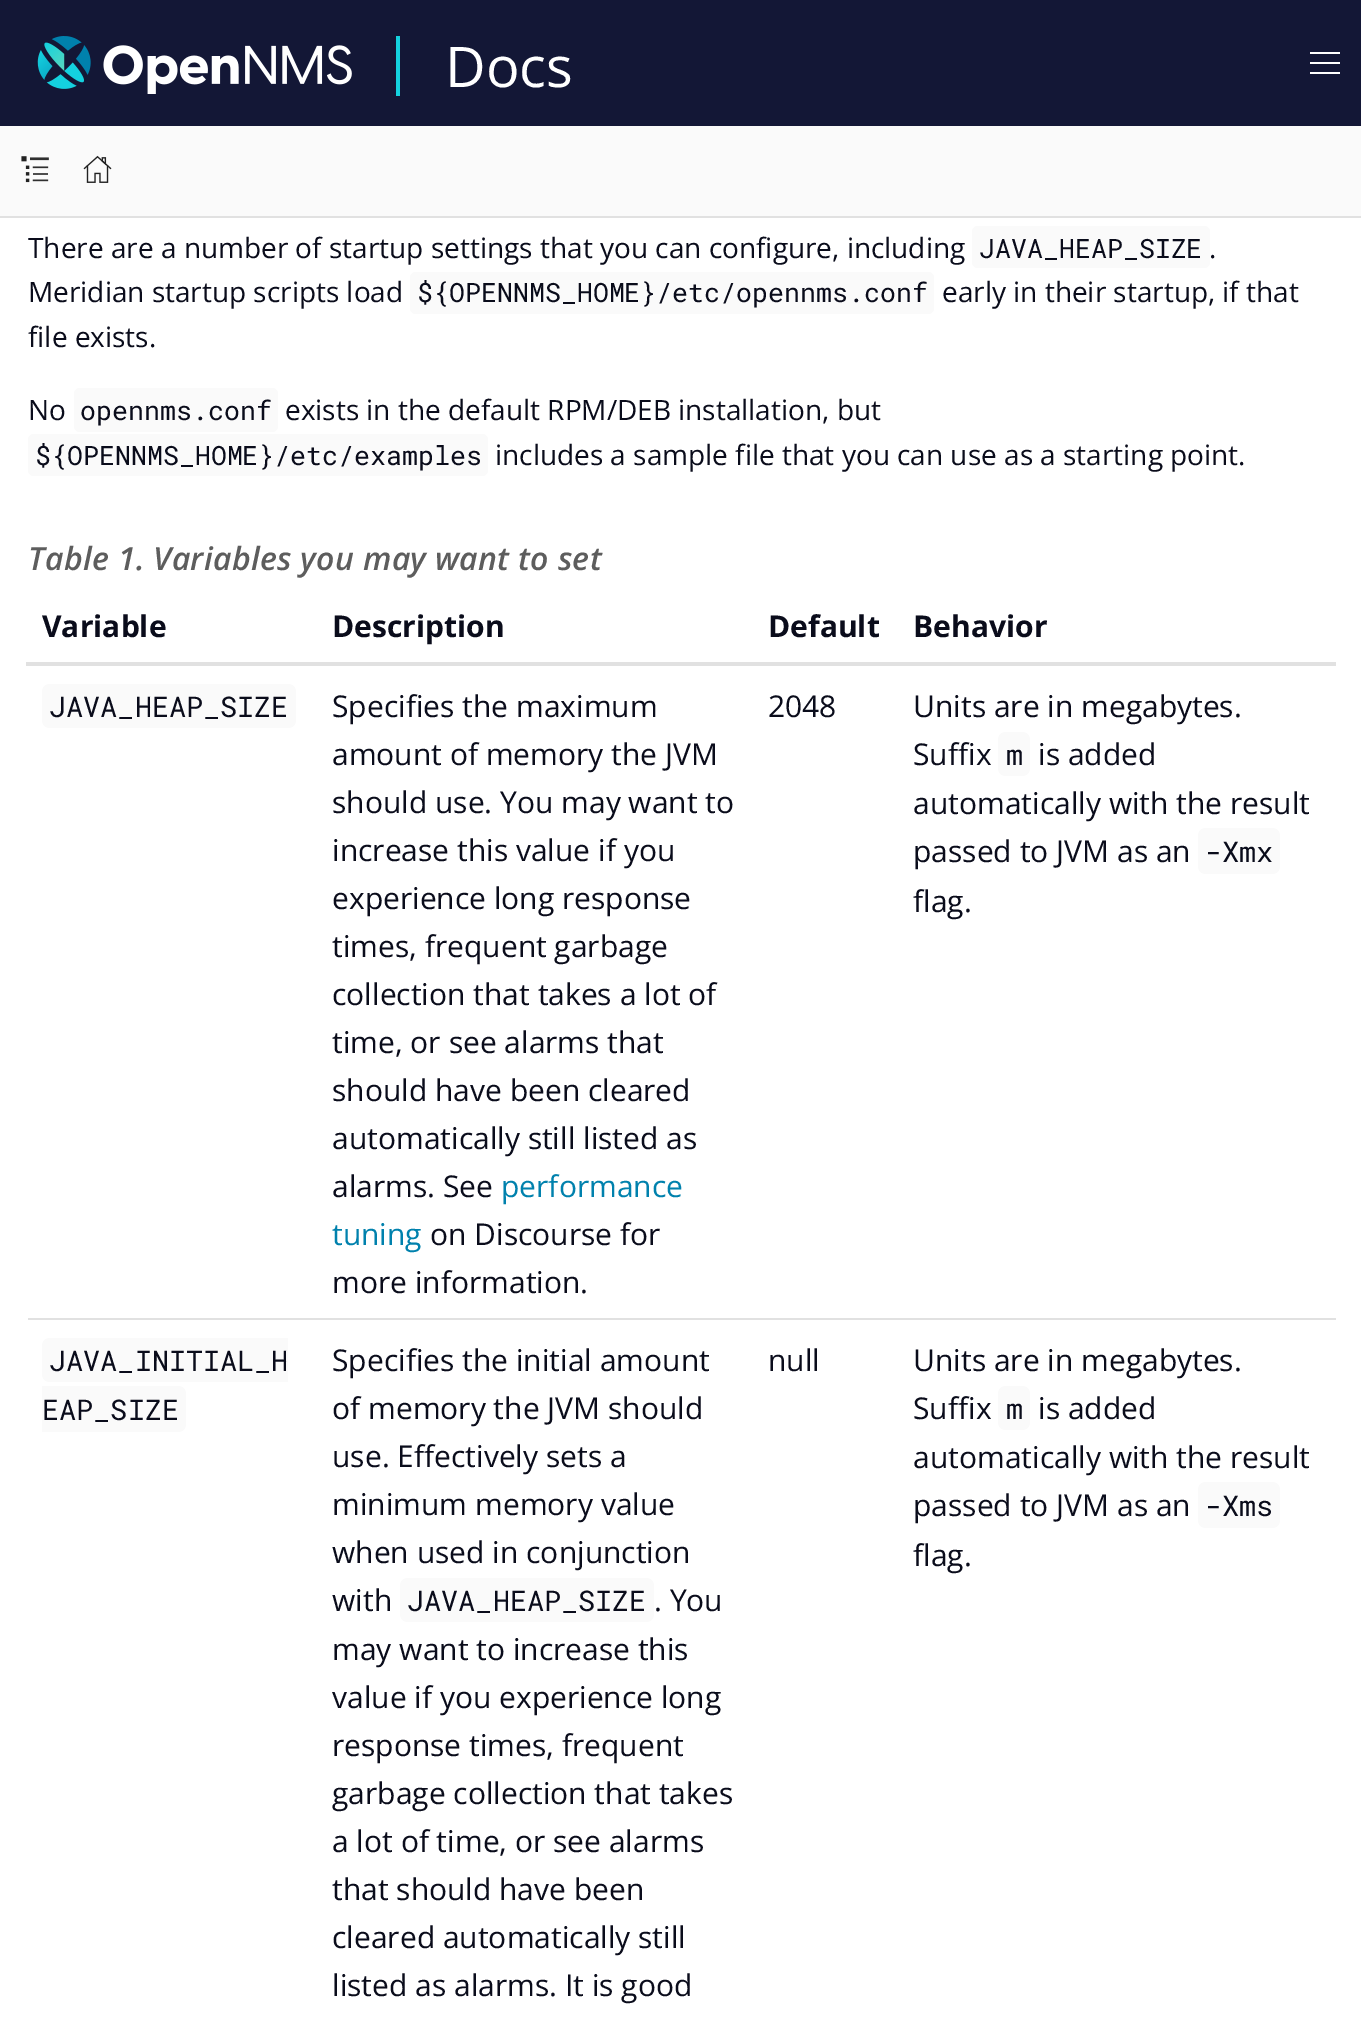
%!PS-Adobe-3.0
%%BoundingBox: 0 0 1361 2035
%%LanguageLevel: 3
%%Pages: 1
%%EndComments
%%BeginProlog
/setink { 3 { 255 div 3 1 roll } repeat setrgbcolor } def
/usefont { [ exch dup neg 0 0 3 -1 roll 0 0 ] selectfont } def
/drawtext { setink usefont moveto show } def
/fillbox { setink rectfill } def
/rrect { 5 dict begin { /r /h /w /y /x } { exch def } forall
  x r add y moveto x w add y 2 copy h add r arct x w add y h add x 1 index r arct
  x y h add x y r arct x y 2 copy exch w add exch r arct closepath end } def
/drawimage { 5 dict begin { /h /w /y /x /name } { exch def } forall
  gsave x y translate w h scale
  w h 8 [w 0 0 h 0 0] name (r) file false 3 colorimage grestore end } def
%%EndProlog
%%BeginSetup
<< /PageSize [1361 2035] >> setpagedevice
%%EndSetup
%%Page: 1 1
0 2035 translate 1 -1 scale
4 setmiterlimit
0 0 1361 2035 255 255 255 fillbox
0 0 1361 126 19 23 54 fillbox
(assets/img1.rgb) 37 36 315 58 drawimage
396 36 4 60 20 209 223 fillbox
(Docs) 445 87 /OpenSans-Regular 56 255 255 255 drawtext
1310 52 30 2 255 255 255 fillbox
1310 62 30 2 255 255 255 fillbox
1310 72 30 2 255 255 255 fillbox
0 216 1361 2 225 225 225 fillbox
0 126 1361 90 250 250 250 fillbox
(assets/img2.rgb) 21 156 28 27 drawimage
(assets/img3.rgb) 83 155 29 28 drawimage
(There are a number of startup settings that you can configure, including) 28 258 /OpenSans-Regular 28 10 12 27 drawtext
250 250 250 setink
972 226 238 42 6 rrect fill
(JAVA_HEAP_SIZE) 979 258 /RobotoMono-Regular 26.6 10 12 27 drawtext
(.) 1209 258 /OpenSans-Regular 28 10 12 27 drawtext
(Meridian startup scripts load) 28 302 /OpenSans-Regular 28 10 12 27 drawtext
250 250 250 setink
410 272 524 42 6 rrect fill
(${OPENNMS_HOME}/etc/opennms.conf) 417 302 /RobotoMono-Regular 26.6 10 12 27 drawtext
(early in their startup, if that) 942 302 /OpenSans-Regular 28 10 12 27 drawtext
(file exists.) 28 347 /OpenSans-Regular 28 10 12 27 drawtext
(No) 28 420 /OpenSans-Regular 28 10 12 27 drawtext
250 250 250 setink
74 388 204 44 6 rrect fill
(opennms.conf) 80 420 /RobotoMono-Regular 26.6 10 12 27 drawtext
(exists in the default RPM/DEB installation, but) 285 420 /OpenSans-Regular 28 10 12 27 drawtext
250 250 250 setink
28 434 460 42 6 rrect fill
(${OPENNMS_HOME}/etc/examples) 35 465 /RobotoMono-Regular 26.6 10 12 27 drawtext
(includes a sample file that you can use as a starting point.) 495 465 /OpenSans-Regular 28 10 12 27 drawtext
/OpenSans-SemiBoldItalic 32 usefont
93 93 93 setink
28 570 moveto 0.3 0 (Table 1. Variables you may want to set) ashow
(Variable) 42 637 /OpenSans-Bold 30 10 12 27 drawtext
(Description) 332 637 /OpenSans-Bold 30 10 12 27 drawtext
(Default) 768 637 /OpenSans-Bold 30 10 12 27 drawtext
26 662 1310 4 225 225 225 fillbox
(Behavior) 913 637 /OpenSans-Bold 30 10 12 27 drawtext
250 250 250 setink
42 684 254 44 8 rrect fill
(JAVA_HEAP_SIZE) 49 717 /RobotoMono-Regular 28.5 10 12 27 drawtext
(Specifies the maximum) 332 717 /OpenSans-Regular 30 10 12 27 drawtext
(amount of memory the JVM) 332 765 /OpenSans-Regular 30 10 12 27 drawtext
(should use. You may want to) 332 813 /OpenSans-Regular 30 10 12 27 drawtext
(increase this value if you) 332 861 /OpenSans-Regular 30 10 12 27 drawtext
(experience long response) 332 909 /OpenSans-Regular 30 10 12 27 drawtext
(times, frequent garbage) 332 957 /OpenSans-Regular 30 10 12 27 drawtext
(collection that takes a lot of) 332 1005 /OpenSans-Regular 30 10 12 27 drawtext
(time, or see alarms that) 332 1053 /OpenSans-Regular 30 10 12 27 drawtext
(should have been cleared) 332 1101 /OpenSans-Regular 30 10 12 27 drawtext
(automatically still listed as) 332 1149 /OpenSans-Regular 30 10 12 27 drawtext
(alarms. See) 332 1197 /OpenSans-Regular 30 10 12 27 drawtext
(performance) 501 1197 /OpenSans-Regular 30 0 129 173 drawtext
(tuning) 332 1245 /OpenSans-Regular 30 0 129 173 drawtext
(on Discourse for) 430 1245 /OpenSans-Regular 30 10 12 27 drawtext
(more information.) 332 1293 /OpenSans-Regular 30 10 12 27 drawtext
(2048) 768 717 /OpenSans-Regular 30 10 12 27 drawtext
(Units are in megabytes.) 913 717 /OpenSans-Regular 30 10 12 27 drawtext
(Suffix) 913 765 /OpenSans-Regular 30 10 12 27 drawtext
250 250 250 setink
998 732 32 44 8 rrect fill
(m) 1006 765 /RobotoMono-Regular 28.5 10 12 27 drawtext
(is added) 1038 765 /OpenSans-Regular 30 10 12 27 drawtext
(automatically with the result) 913 814 /OpenSans-Regular 30 10 12 27 drawtext
(passed to JVM as an) 913 862 /OpenSans-Regular 30 10 12 27 drawtext
250 250 250 setink
1198 828 82 46 8 rrect fill
(-Xmx) 1205 862 /RobotoMono-Regular 28.5 10 12 27 drawtext
(flag.) 913 912 /OpenSans-Regular 30 10 12 27 drawtext
250 250 250 setink
50 1338 moveto 288 1338 lineto 288 1382 lineto 50 1382 lineto 45.5 1382 42 1378.5 42 1374 curveto 42 1346 lineto 42 1341.5 45.5 1338 50 1338 curveto closepath fill
(JAVA_INITIAL_H) 49 1371 /RobotoMono-Regular 28.5 10 12 27 drawtext
250 250 250 setink
42 1386 moveto 178 1386 lineto 182.5 1386 186 1389.5 186 1394 curveto 186 1424 lineto 186 1428.5 182.5 1432 178 1432 curveto 42 1432 lineto closepath fill
(EAP_SIZE) 42 1420 /RobotoMono-Regular 28.5 10 12 27 drawtext
(Specifies the initial amount) 332 1371 /OpenSans-Regular 30 10 12 27 drawtext
(of memory the JVM should) 332 1419 /OpenSans-Regular 30 10 12 27 drawtext
(use. Effectively sets a) 332 1467 /OpenSans-Regular 30 10 12 27 drawtext
(minimum memory value) 332 1515 /OpenSans-Regular 30 10 12 27 drawtext
(when used in conjunction) 332 1563 /OpenSans-Regular 30 10 12 27 drawtext
(with) 332 1611 /OpenSans-Regular 30 10 12 27 drawtext
250 250 250 setink
400 1578 254 44 8 rrect fill
(JAVA_HEAP_SIZE) 407 1611 /RobotoMono-Regular 28.5 10 12 27 drawtext
(. You) 654 1611 /OpenSans-Regular 30 10 12 27 drawtext
(may want to increase this) 332 1660 /OpenSans-Regular 30 10 12 27 drawtext
(value if you experience long) 332 1708 /OpenSans-Regular 30 10 12 27 drawtext
(response times, frequent) 332 1756 /OpenSans-Regular 30 10 12 27 drawtext
(garbage collection that takes) 332 1804 /OpenSans-Regular 30 10 12 27 drawtext
(a lot of time, or see alarms) 332 1852 /OpenSans-Regular 30 10 12 27 drawtext
(that should have been) 332 1900 /OpenSans-Regular 30 10 12 27 drawtext
(cleared automatically still) 332 1948 /OpenSans-Regular 30 10 12 27 drawtext
(listed as alarms. It is good) 332 1996 /OpenSans-Regular 30 10 12 27 drawtext
(null) 768 1371 /OpenSans-Regular 30 10 12 27 drawtext
28 1318 1308 2 225 225 225 fillbox
(Units are in megabytes.) 913 1371 /OpenSans-Regular 30 10 12 27 drawtext
(Suffix) 913 1419 /OpenSans-Regular 30 10 12 27 drawtext
250 250 250 setink
998 1386 32 44 8 rrect fill
(m) 1006 1419 /RobotoMono-Regular 28.5 10 12 27 drawtext
(is added) 1038 1419 /OpenSans-Regular 30 10 12 27 drawtext
(automatically with the result) 913 1468 /OpenSans-Regular 30 10 12 27 drawtext
(passed to JVM as an) 913 1516 /OpenSans-Regular 30 10 12 27 drawtext
250 250 250 setink
1198 1482 82 46 8 rrect fill
(-Xms) 1205 1516 /RobotoMono-Regular 28.5 10 12 27 drawtext
(flag.) 913 1566 /OpenSans-Regular 30 10 12 27 drawtext
showpage
%%EOF
